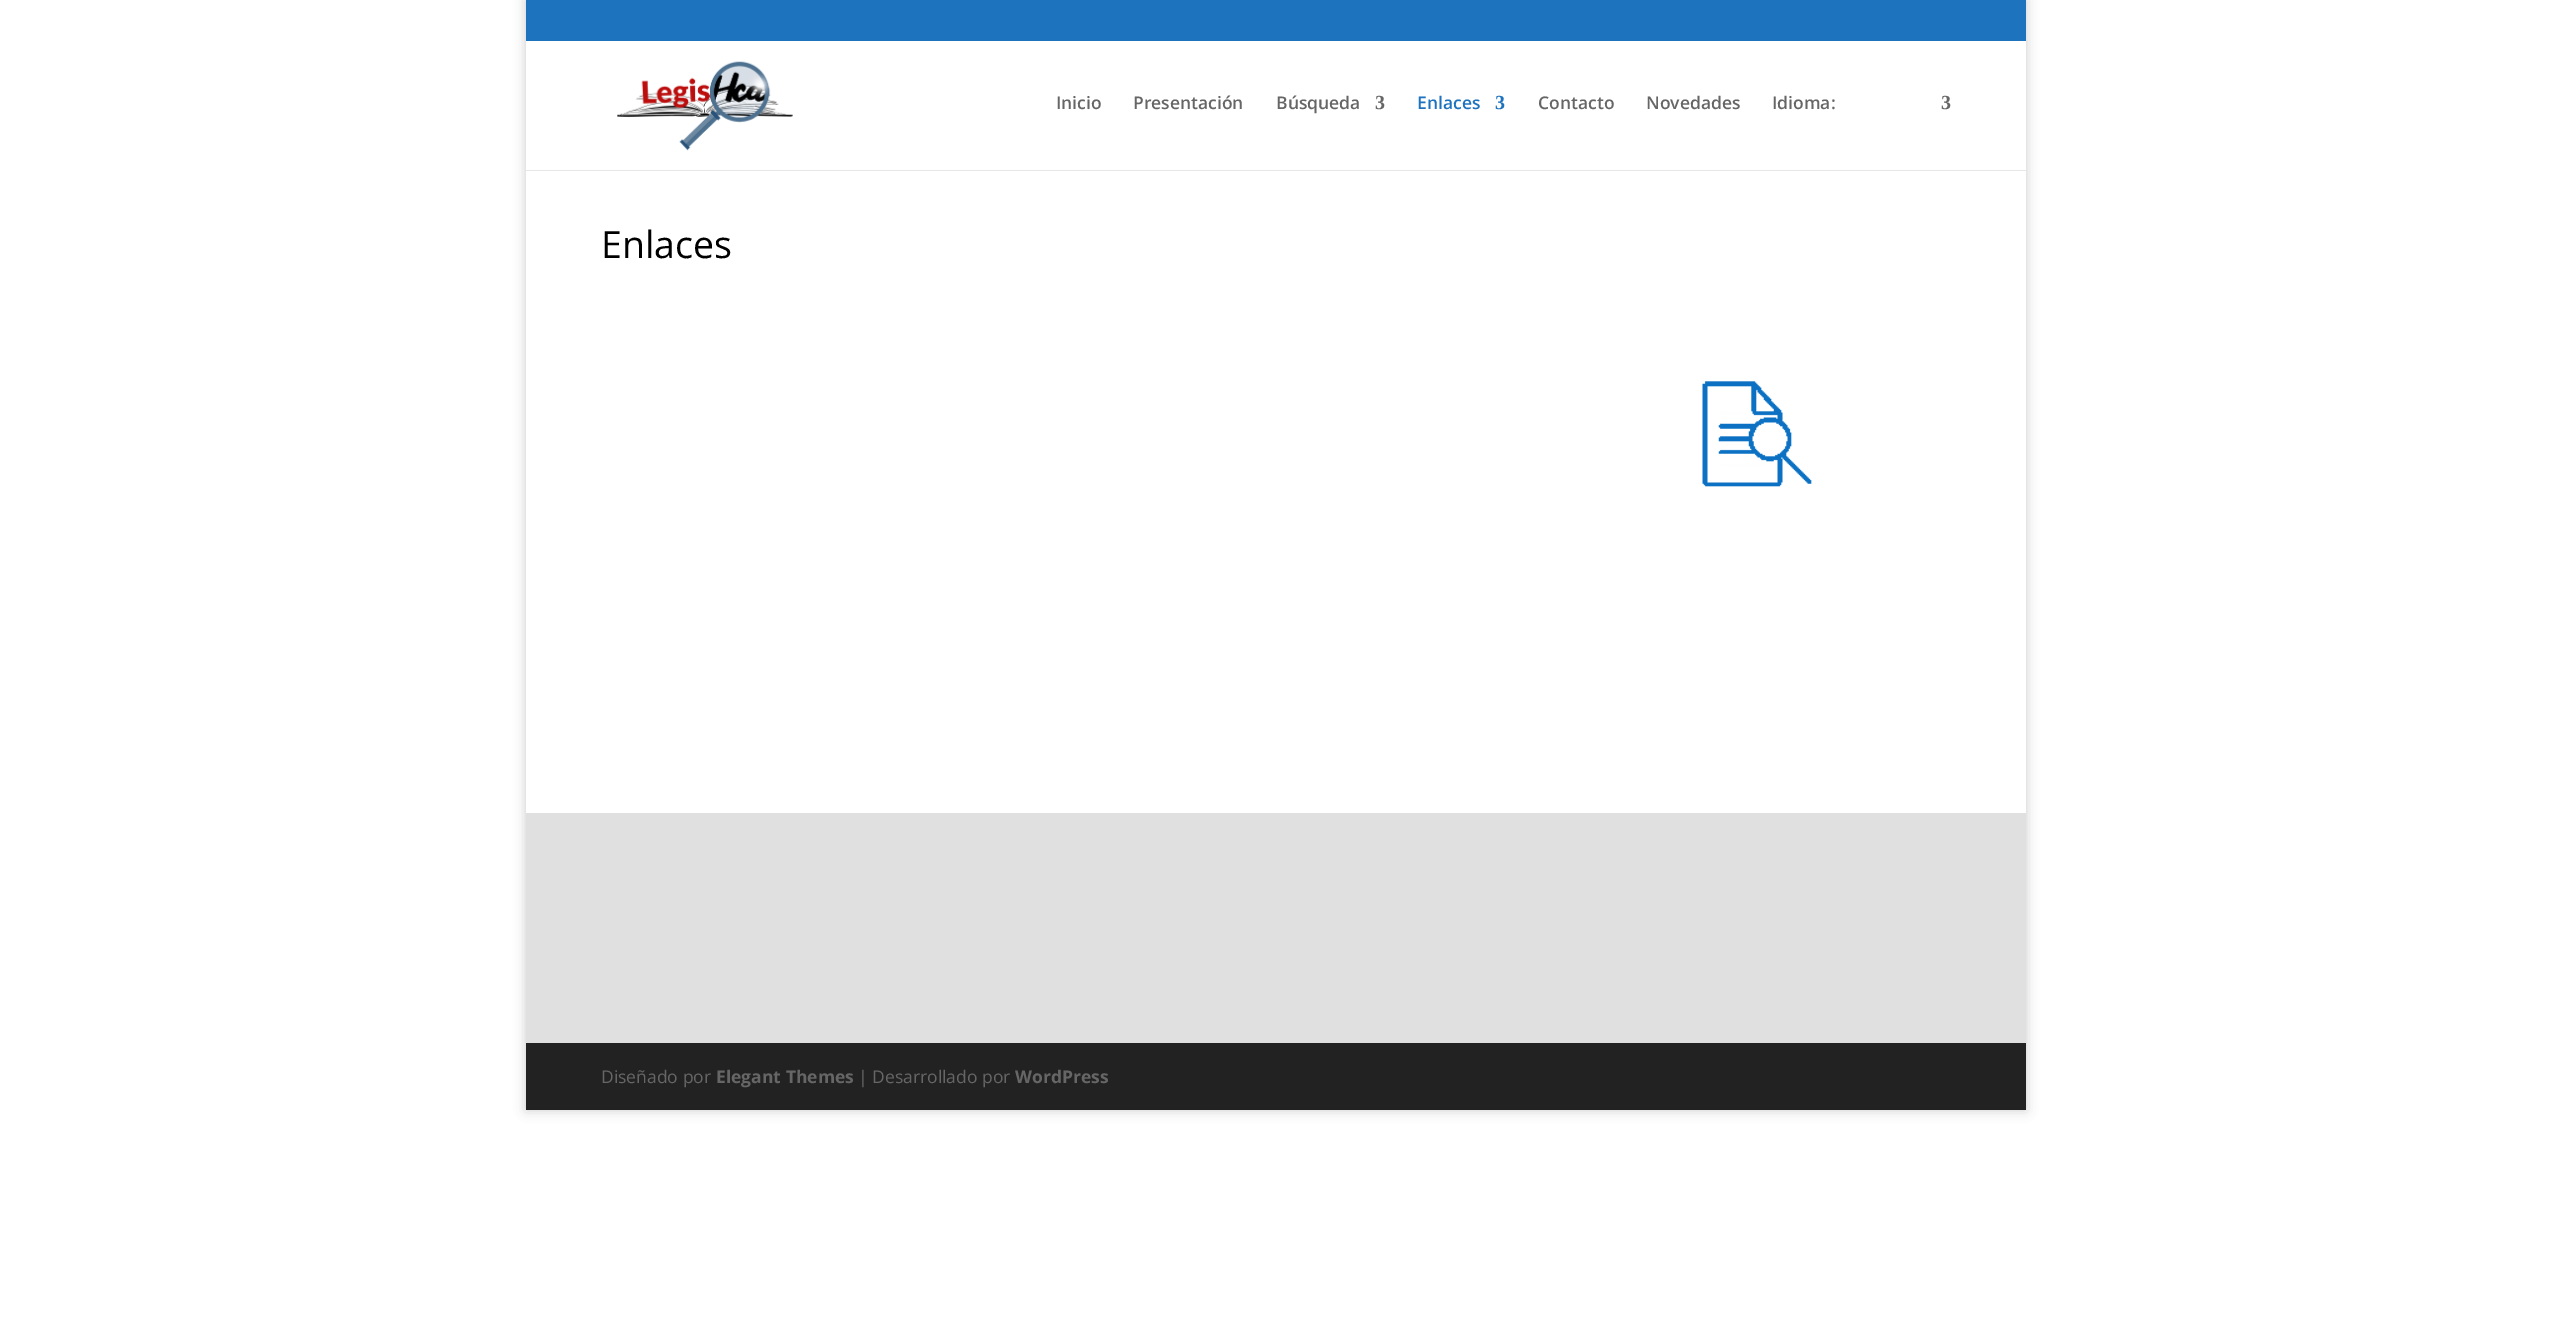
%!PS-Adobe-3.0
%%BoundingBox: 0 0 2552 1344
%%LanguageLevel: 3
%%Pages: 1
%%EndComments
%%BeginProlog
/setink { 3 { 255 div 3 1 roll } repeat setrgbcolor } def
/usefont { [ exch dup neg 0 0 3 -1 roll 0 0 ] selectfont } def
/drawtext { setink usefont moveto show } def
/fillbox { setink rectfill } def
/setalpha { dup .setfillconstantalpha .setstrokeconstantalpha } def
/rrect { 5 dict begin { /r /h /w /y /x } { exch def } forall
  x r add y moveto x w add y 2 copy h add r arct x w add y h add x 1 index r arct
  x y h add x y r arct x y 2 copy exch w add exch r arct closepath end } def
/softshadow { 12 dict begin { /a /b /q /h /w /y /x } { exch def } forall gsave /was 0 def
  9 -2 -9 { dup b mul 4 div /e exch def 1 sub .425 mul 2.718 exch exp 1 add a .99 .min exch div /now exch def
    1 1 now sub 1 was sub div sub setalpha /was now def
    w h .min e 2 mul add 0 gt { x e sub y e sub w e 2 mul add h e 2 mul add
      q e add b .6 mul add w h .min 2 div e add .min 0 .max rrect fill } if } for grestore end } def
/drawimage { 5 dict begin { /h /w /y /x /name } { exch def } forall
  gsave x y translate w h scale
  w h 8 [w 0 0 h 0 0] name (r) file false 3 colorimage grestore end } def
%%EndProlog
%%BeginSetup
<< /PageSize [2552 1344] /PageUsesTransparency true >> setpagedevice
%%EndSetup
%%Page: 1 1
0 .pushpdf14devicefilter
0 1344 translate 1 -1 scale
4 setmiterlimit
0 0 2552 1344 255 255 255 fillbox
0 0 0 setink
526 0 1500 1110 0 6 0.2 softshadow
526 0 1500 41 30 115 190 fillbox
230 230 230 setink
526 39 moveto 526 171 lineto 2026 171 lineto 2026 170 lineto 526 170 lineto closepath fill
526 41 1500 129 255 255 255 fillbox
(assets/img1.rgb) 617 61 176 90 drawimage
(Inicio) 1056 109 /OpenSans-SemiBold 17.5 102 102 102 drawtext
(Presentación) 1133 109 /OpenSans-SemiBold 17.5 102 102 102 drawtext
(Búsqueda) 1276 109 /OpenSans-SemiBold 17.5 102 102 102 drawtext
(3) 1375 109 /LiberationSerif-Bold 20 102 102 102 drawtext
(Enlaces) 1417 109 /OpenSans-SemiBold 17.5 30 115 190 drawtext
(3) 1495 109 /LiberationSerif-Bold 20 30 115 190 drawtext
(Contacto) 1538 109 /OpenSans-SemiBold 17.5 102 102 102 drawtext
(Novedades) 1646 109 /OpenSans-SemiBold 17.5 102 102 102 drawtext
(Idioma:) 1772 109 /OpenSans-SemiBold 17.5 102 102 102 drawtext
(3) 1941 109 /LiberationSerif-Bold 20 102 102 102 drawtext
526 171 1500 642 255 255 255 fillbox
(Enlaces) 601 258 /OpenSans-Regular 37.5 0 0 0 drawtext
(assets/img2.rgb) 1702 381 110 106 drawimage
526 813 1500 230 224 224 224 fillbox
526 1043 1500 67 34 34 34 fillbox
(Diseñado por) 601 1083 /OpenSans-Regular 17.5 102 102 102 drawtext
(Elegant Themes) 716 1083 /OpenSans-Bold 17.5 102 102 102 drawtext
(| Desarrollado por) 858 1083 /OpenSans-Regular 17.5 102 102 102 drawtext
(WordPress) 1015 1083 /OpenSans-Bold 17.5 102 102 102 drawtext
.poppdf14devicefilter showpage
%%EOF
